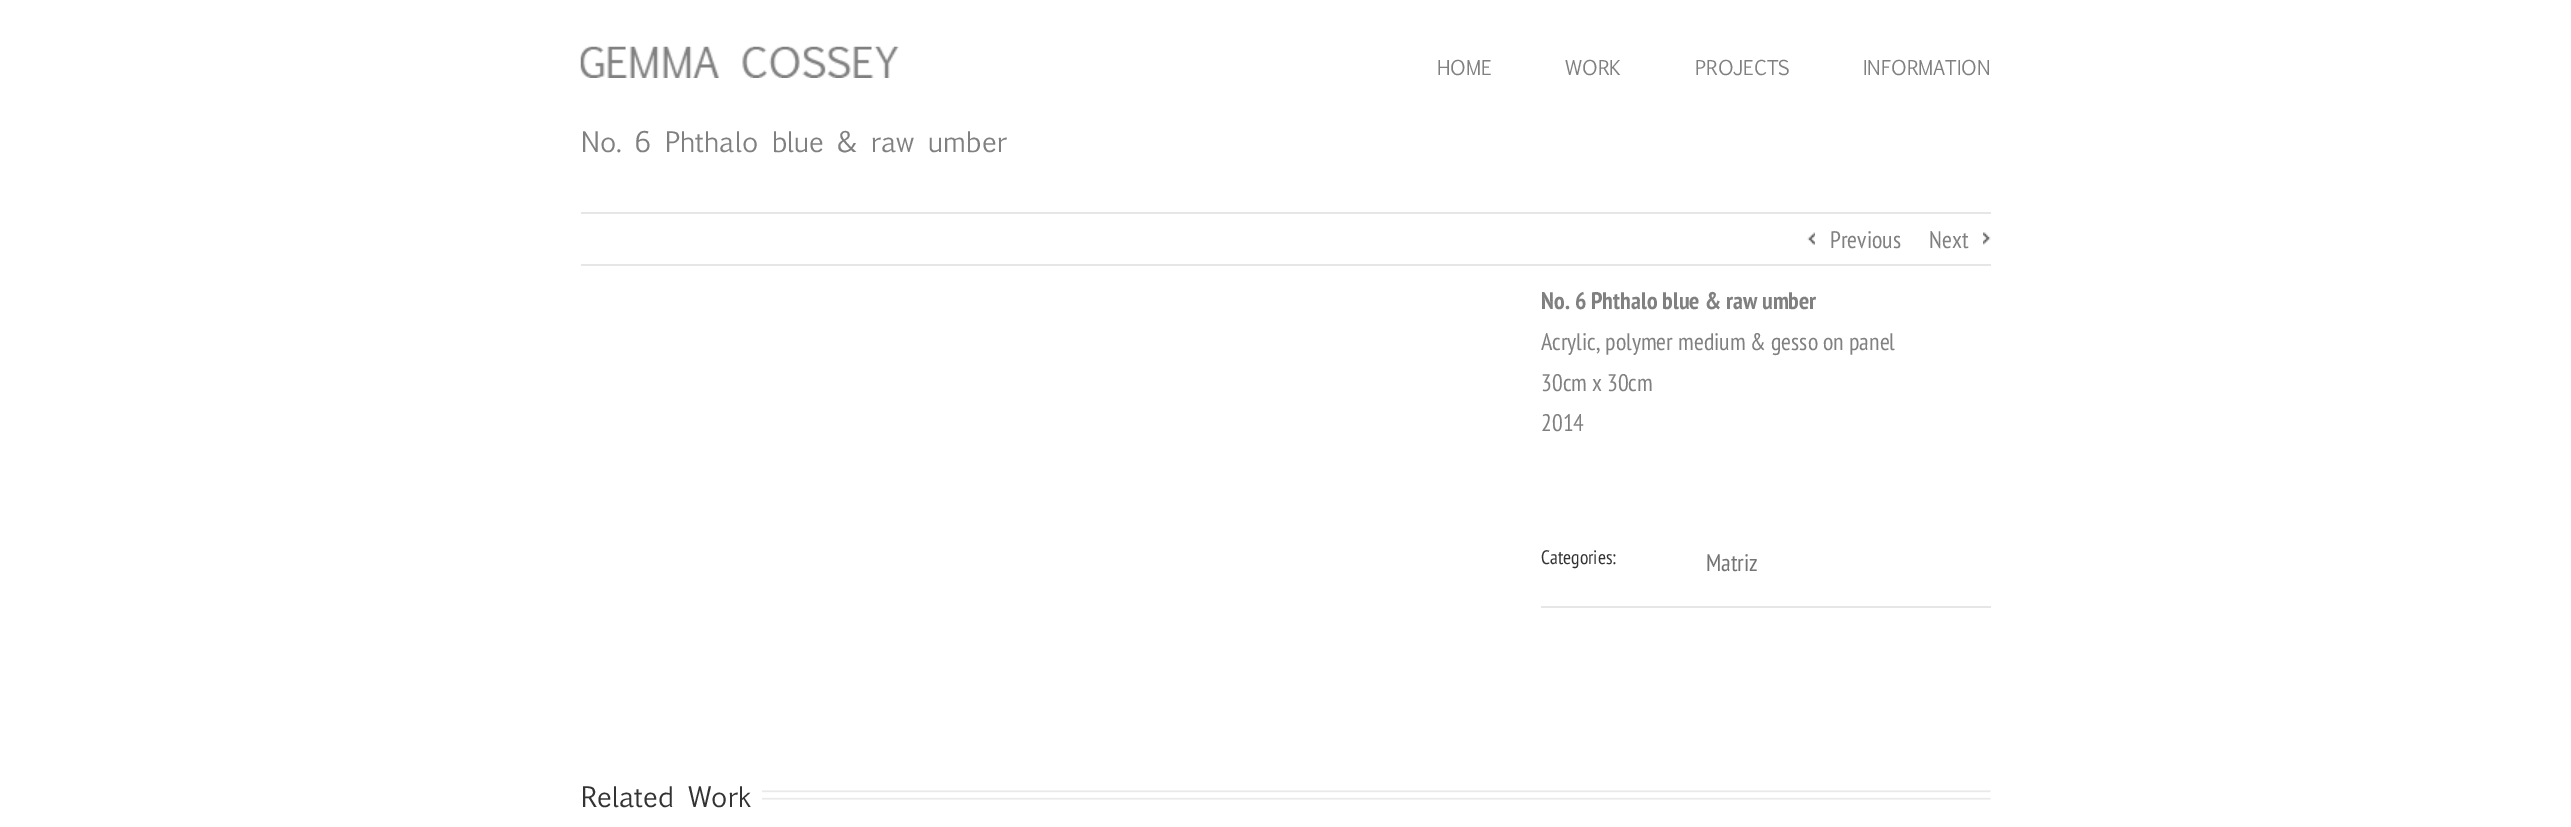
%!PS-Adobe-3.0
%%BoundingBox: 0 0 2571 827
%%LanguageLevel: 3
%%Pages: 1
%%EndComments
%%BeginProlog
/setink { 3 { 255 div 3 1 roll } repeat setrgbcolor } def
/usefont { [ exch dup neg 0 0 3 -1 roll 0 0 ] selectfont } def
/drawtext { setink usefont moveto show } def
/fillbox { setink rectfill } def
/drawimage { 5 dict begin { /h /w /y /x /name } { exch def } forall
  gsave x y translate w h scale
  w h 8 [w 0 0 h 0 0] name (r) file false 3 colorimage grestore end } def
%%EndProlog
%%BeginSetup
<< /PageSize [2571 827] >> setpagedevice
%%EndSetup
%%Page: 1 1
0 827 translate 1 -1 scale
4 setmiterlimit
0 0 2571 827 255 255 255 fillbox
(assets/img1.rgb) 580 46 319 32 drawimage
(HOME) 1437 75 /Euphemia-Regular 19.5 128 128 128 drawtext
(WORK) 1565 75 /Euphemia-Regular 19.5 128 128 128 drawtext
(PROJECTS) 1695 75 /Euphemia-Regular 19.5 128 128 128 drawtext
(INFORMATION) 1863 75 /Euphemia-Regular 19.5 128 128 128 drawtext
(No. 6 Phthalo blue & raw umber) 581 152 /Euphemia-Regular 27 128 128 128 drawtext
581 212 1410 2 231 230 230 fillbox
581 264 1410 2 231 230 230 fillbox
(assets/img2.rgb) 1807 232 8 13 drawimage
(Previous) 1830 248 /PTSansNarrow-Regular 24 128 128 128 drawtext
(Next) 1929 248 /PTSansNarrow-Regular 24 128 128 128 drawtext
(assets/img3.rgb) 1983 232 8 13 drawimage
(No. 6 Phthalo blue & raw umber) 1541 309 /PTSansNarrow-Bold 24 128 128 128 drawtext
(Acrylic, polymer medium & gesso on panel) 1541 350 /PTSansNarrow-Regular 24 128 128 128 drawtext
(30cm x 30cm) 1541 391 /PTSansNarrow-Regular 24 128 128 128 drawtext
(2014) 1541 431 /PTSansNarrow-Regular 24 128 128 128 drawtext
1541 606 450 2 231 230 230 fillbox
(Categories:) 1541 564 /PTSansNarrow-Regular 19.5 51 51 51 drawtext
(Matriz) 1706 571 /PTSansNarrow-Regular 24 116 116 116 drawtext
(assets/img4.rgb) 580 790 1411 10 drawimage
581 790 181 10 255 255 255 fillbox
(Related Work) 581 807 /Euphemia-Regular 27 51 51 51 drawtext
showpage
%%EOF
